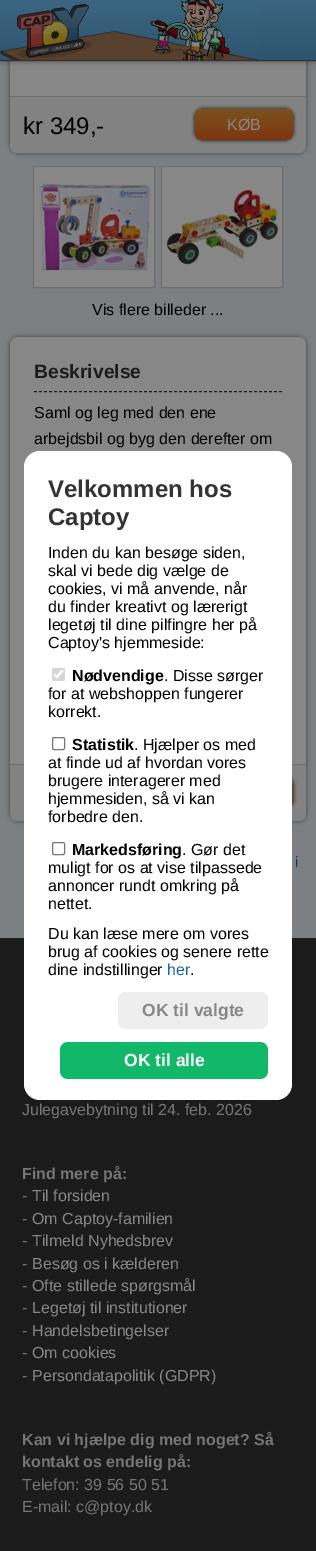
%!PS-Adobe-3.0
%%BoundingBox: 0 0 316 1551
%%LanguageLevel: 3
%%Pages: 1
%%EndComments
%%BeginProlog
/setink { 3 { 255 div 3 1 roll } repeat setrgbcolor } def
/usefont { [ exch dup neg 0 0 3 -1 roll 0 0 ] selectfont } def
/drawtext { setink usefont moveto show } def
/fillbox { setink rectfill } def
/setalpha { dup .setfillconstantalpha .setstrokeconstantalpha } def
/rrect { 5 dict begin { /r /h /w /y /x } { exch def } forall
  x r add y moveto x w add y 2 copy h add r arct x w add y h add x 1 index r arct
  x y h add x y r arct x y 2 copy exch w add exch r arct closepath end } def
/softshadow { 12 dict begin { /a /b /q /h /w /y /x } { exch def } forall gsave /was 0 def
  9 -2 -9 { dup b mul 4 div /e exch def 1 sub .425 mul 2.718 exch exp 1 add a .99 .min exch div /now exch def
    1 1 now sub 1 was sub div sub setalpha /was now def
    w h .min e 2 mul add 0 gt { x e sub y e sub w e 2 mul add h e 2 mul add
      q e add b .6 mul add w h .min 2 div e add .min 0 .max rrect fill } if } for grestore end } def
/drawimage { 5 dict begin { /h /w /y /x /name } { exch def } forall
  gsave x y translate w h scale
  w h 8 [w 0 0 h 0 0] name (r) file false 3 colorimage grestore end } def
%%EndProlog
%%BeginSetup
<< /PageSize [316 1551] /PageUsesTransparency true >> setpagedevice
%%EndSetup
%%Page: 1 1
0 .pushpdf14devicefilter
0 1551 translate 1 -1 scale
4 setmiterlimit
0 0 316 1551 125 128 131 fillbox
0 0 0 setink
10 -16 296 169 8 2.5 0.5 softshadow
135 135 135 setink
10 -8 296 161 8 rrect fill
0 0 0 setink
0 0 316 61 0 2.5 0.5 softshadow
gsave 0 0 moveto 316 0 lineto 316 60 lineto 0 60 lineto closepath clip newpath
<< /ShadingType 2 /ColorSpace /DeviceRGB /Coords [158 60 158 0] /Extend [true true] /Function << /FunctionType 2 /Domain [0 1] /C0 [0.18 0.329 0.431] /C1 [0.227 0.392 0.502] /N 1 >> >> shfill grestore
0 60 316 1 45 45 45 fillbox
(assets/img1.rgb) 0 0 260 60 drawimage
130 130 130 setink
10 96 moveto 306 96 lineto 306 145 lineto 306 149.5 302.5 153 298 153 curveto 18 153 lineto 13.5 153 10 149.5 10 145 curveto closepath fill
10 96 296 1 108 108 108 fillbox
(kr 349,-) 23 134 /LiberationSans-Regular 24 0 0 0 drawtext
195 109 98 31 8 2 1 softshadow
gsave 195 109 98 31 8 rrect clip newpath
<< /ShadingType 2 /ColorSpace /DeviceRGB /Coords [244 140 244 109] /Extend [true true] /Function << /FunctionType 2 /Domain [0 1] /C0 [0.498 0.212 0.067] /C1 [0.478 0.318 0.11] /N 1 >> >> shfill grestore
(KØB) 227 130 /LiberationSans-Regular 16 135 135 135 drawtext
108 108 108 setink
33.5 166.5 121 121 rectstroke
(assets/img2.rgb) 34 167 120 120 drawimage
161.5 166.5 121 121 rectstroke
(assets/img3.rgb) 162 167 120 120 drawimage
(Vis flere billeder ...) 92 315 /LiberationSans-Regular 16 0 0 0 drawtext
10 337 296 484 8 2.5 0.5 softshadow
135 135 135 setink
10 337 296 484 8 rrect fill
27 27 27 setink
[3 2] 0 setdash
34 391.5 moveto 282 391.5 lineto stroke
(Beskrivelse) 34 378 /LiberationSans-Bold 19.25 27 27 27 drawtext
(Saml og leg med den ene) 34 418 /LiberationSans-Regular 16 0 0 0 drawtext
(arbejdsbil og byg den derefter om) 34 444 /LiberationSans-Regular 16 0 0 0 drawtext
130 130 130 setink
10 764 moveto 306 764 lineto 306 813 lineto 306 817.5 302.5 821 298 821 curveto 18 821 lineto 13.5 821 10 817.5 10 813 curveto closepath fill
10 764 296 1 108 108 108 fillbox
0 0 0 setink
195 777 98 31 8 2 1 softshadow
gsave 195 777 98 31 8 rrect clip newpath
<< /ShadingType 2 /ColorSpace /DeviceRGB /Coords [244 808 244 777] /Extend [true true] /Function << /FunctionType 2 /Domain [0 1] /C0 [0.498 0.212 0.067] /C1 [0.478 0.318 0.11] /N 1 >> >> shfill grestore
(i) 295 867 /LiberationSans-Regular 15 14 56 85 drawtext
0 938 316 613 27 27 27 fillbox
255 255 255 setink
24 451 268 649 16 rrect fill
(Velkommen hos) 48 497 /LiberationSans-Bold 24 51 51 51 drawtext
(Captoy) 48 525 /LiberationSans-Bold 24 51 51 51 drawtext
(Inden du kan besøge siden,) 48 558 /LiberationSans-Regular 16 0 0 0 drawtext
(skal vi bede dig vælge de) 48 576 /LiberationSans-Regular 16 0 0 0 drawtext
(cookies, vi må anvende, når) 48 594 /LiberationSans-Regular 16 0 0 0 drawtext
(du finder kreativt og lærerigt) 48 612 /LiberationSans-Regular 16 0 0 0 drawtext
(legetøj til dine pilfingre her på) 48 630 /LiberationSans-Regular 16 0 0 0 drawtext
(Captoy's hjemmeside:) 48 648 /LiberationSans-Regular 16 0 0 0 drawtext
214 214 214 setink
52 668 13 13 2 rrect fill
255 255 255 setink
2.1 setlinewidth
[] 0 setdash
54.5 674.5 moveto 57 677 lineto 62.5 670.5 lineto stroke
(Nødvendige) 72 681 /LiberationSans-Bold 16 0 0 0 drawtext
(. Disse sørger) 164 681 /LiberationSans-Regular 16 0 0 0 drawtext
(for at webshoppen fungerer) 48 699 /LiberationSans-Regular 16 0 0 0 drawtext
(korrekt.) 48 717 /LiberationSans-Regular 16 0 0 0 drawtext
118 118 118 setink
1 setlinewidth
52.5 737.5 12 12 1.5 rrect stroke
(Statistik) 72 750 /LiberationSans-Bold 16 0 0 0 drawtext
(. Hjælper os med) 134 750 /LiberationSans-Regular 16 0 0 0 drawtext
(at finde ud af hvordan vores) 48 768 /LiberationSans-Regular 16 0 0 0 drawtext
(brugere interagerer med) 48 786 /LiberationSans-Regular 16 0 0 0 drawtext
(hjemmesiden, så vi kan) 48 804 /LiberationSans-Regular 16 0 0 0 drawtext
(forbedre den.) 48 822 /LiberationSans-Regular 16 0 0 0 drawtext
118 118 118 setink
52.5 842.5 12 12 1.5 rrect stroke
(Markedsføring) 72 855 /LiberationSans-Bold 16 0 0 0 drawtext
(. Gør det) 182 855 /LiberationSans-Regular 16 0 0 0 drawtext
(muligt for os at vise tilpassede) 48 873 /LiberationSans-Regular 16 0 0 0 drawtext
(annoncer rundt omkring på) 48 891 /LiberationSans-Regular 16 0 0 0 drawtext
(nettet.) 48 909 /LiberationSans-Regular 16 0 0 0 drawtext
(Du kan læse mere om vores) 48 939 /LiberationSans-Regular 16 0 0 0 drawtext
(brug af cookies og senere rette) 48 957 /LiberationSans-Regular 16 0 0 0 drawtext
(dine indstillinger) 48 975 /LiberationSans-Regular 16 0 0 0 drawtext
(her) 167 975 /LiberationSans-Regular 16 26 106 161 drawtext
(.) 190 975 /LiberationSans-Regular 16 0 0 0 drawtext
238 238 238 setink
118 992 150 37 8 rrect fill
(OK til valgte) 142 1016 /LiberationSans-Bold 17.5 135 135 135 drawtext
17 184 106 setink
60 1042 208 37 8 rrect fill
(OK til alle) 124 1066 /LiberationSans-Bold 17.5 255 255 255 drawtext
(Julegavebytning til 24. feb. 2026) 22 1115 /LiberationSans-Regular 16 117 117 117 drawtext
(Find mere på:) 22 1179 /LiberationSans-Bold 16 117 117 117 drawtext
(-) 22 1201 /LiberationSans-Regular 16 117 117 117 drawtext
(Til forsiden) 32 1201 /LiberationSans-Regular 16 135 135 135 drawtext
(-) 22 1224 /LiberationSans-Regular 16 117 117 117 drawtext
(Om Captoy-familien) 32 1224 /LiberationSans-Regular 16 135 135 135 drawtext
(-) 22 1246 /LiberationSans-Regular 16 117 117 117 drawtext
(Tilmeld Nyhedsbrev) 32 1246 /LiberationSans-Regular 16 135 135 135 drawtext
(-) 22 1269 /LiberationSans-Regular 16 117 117 117 drawtext
(Besøg os i kælderen) 32 1269 /LiberationSans-Regular 16 135 135 135 drawtext
(-) 22 1291 /LiberationSans-Regular 16 117 117 117 drawtext
(Ofte stillede spørgsmål) 32 1291 /LiberationSans-Regular 16 135 135 135 drawtext
(-) 22 1313 /LiberationSans-Regular 16 117 117 117 drawtext
(Legetøj til institutioner) 32 1313 /LiberationSans-Regular 16 135 135 135 drawtext
(-) 22 1336 /LiberationSans-Regular 16 117 117 117 drawtext
(Handelsbetingelser) 32 1336 /LiberationSans-Regular 16 135 135 135 drawtext
(-) 22 1358 /LiberationSans-Regular 16 117 117 117 drawtext
(Om cookies) 32 1358 /LiberationSans-Regular 16 135 135 135 drawtext
(-) 22 1381 /LiberationSans-Regular 16 117 117 117 drawtext
(Persondatapolitik \(GDPR\)) 32 1381 /LiberationSans-Regular 16 135 135 135 drawtext
(Kan vi hjælpe dig med noget? Så) 22 1445 /LiberationSans-Bold 16 117 117 117 drawtext
(kontakt os endelig på:) 22 1467 /LiberationSans-Bold 16 117 117 117 drawtext
(Telefon: 39 56 50 51) 22 1490 /LiberationSans-Regular 16 117 117 117 drawtext
(E-mail: c@ptoy.dk) 22 1512 /LiberationSans-Regular 16 117 117 117 drawtext
.poppdf14devicefilter showpage
%%EOF
